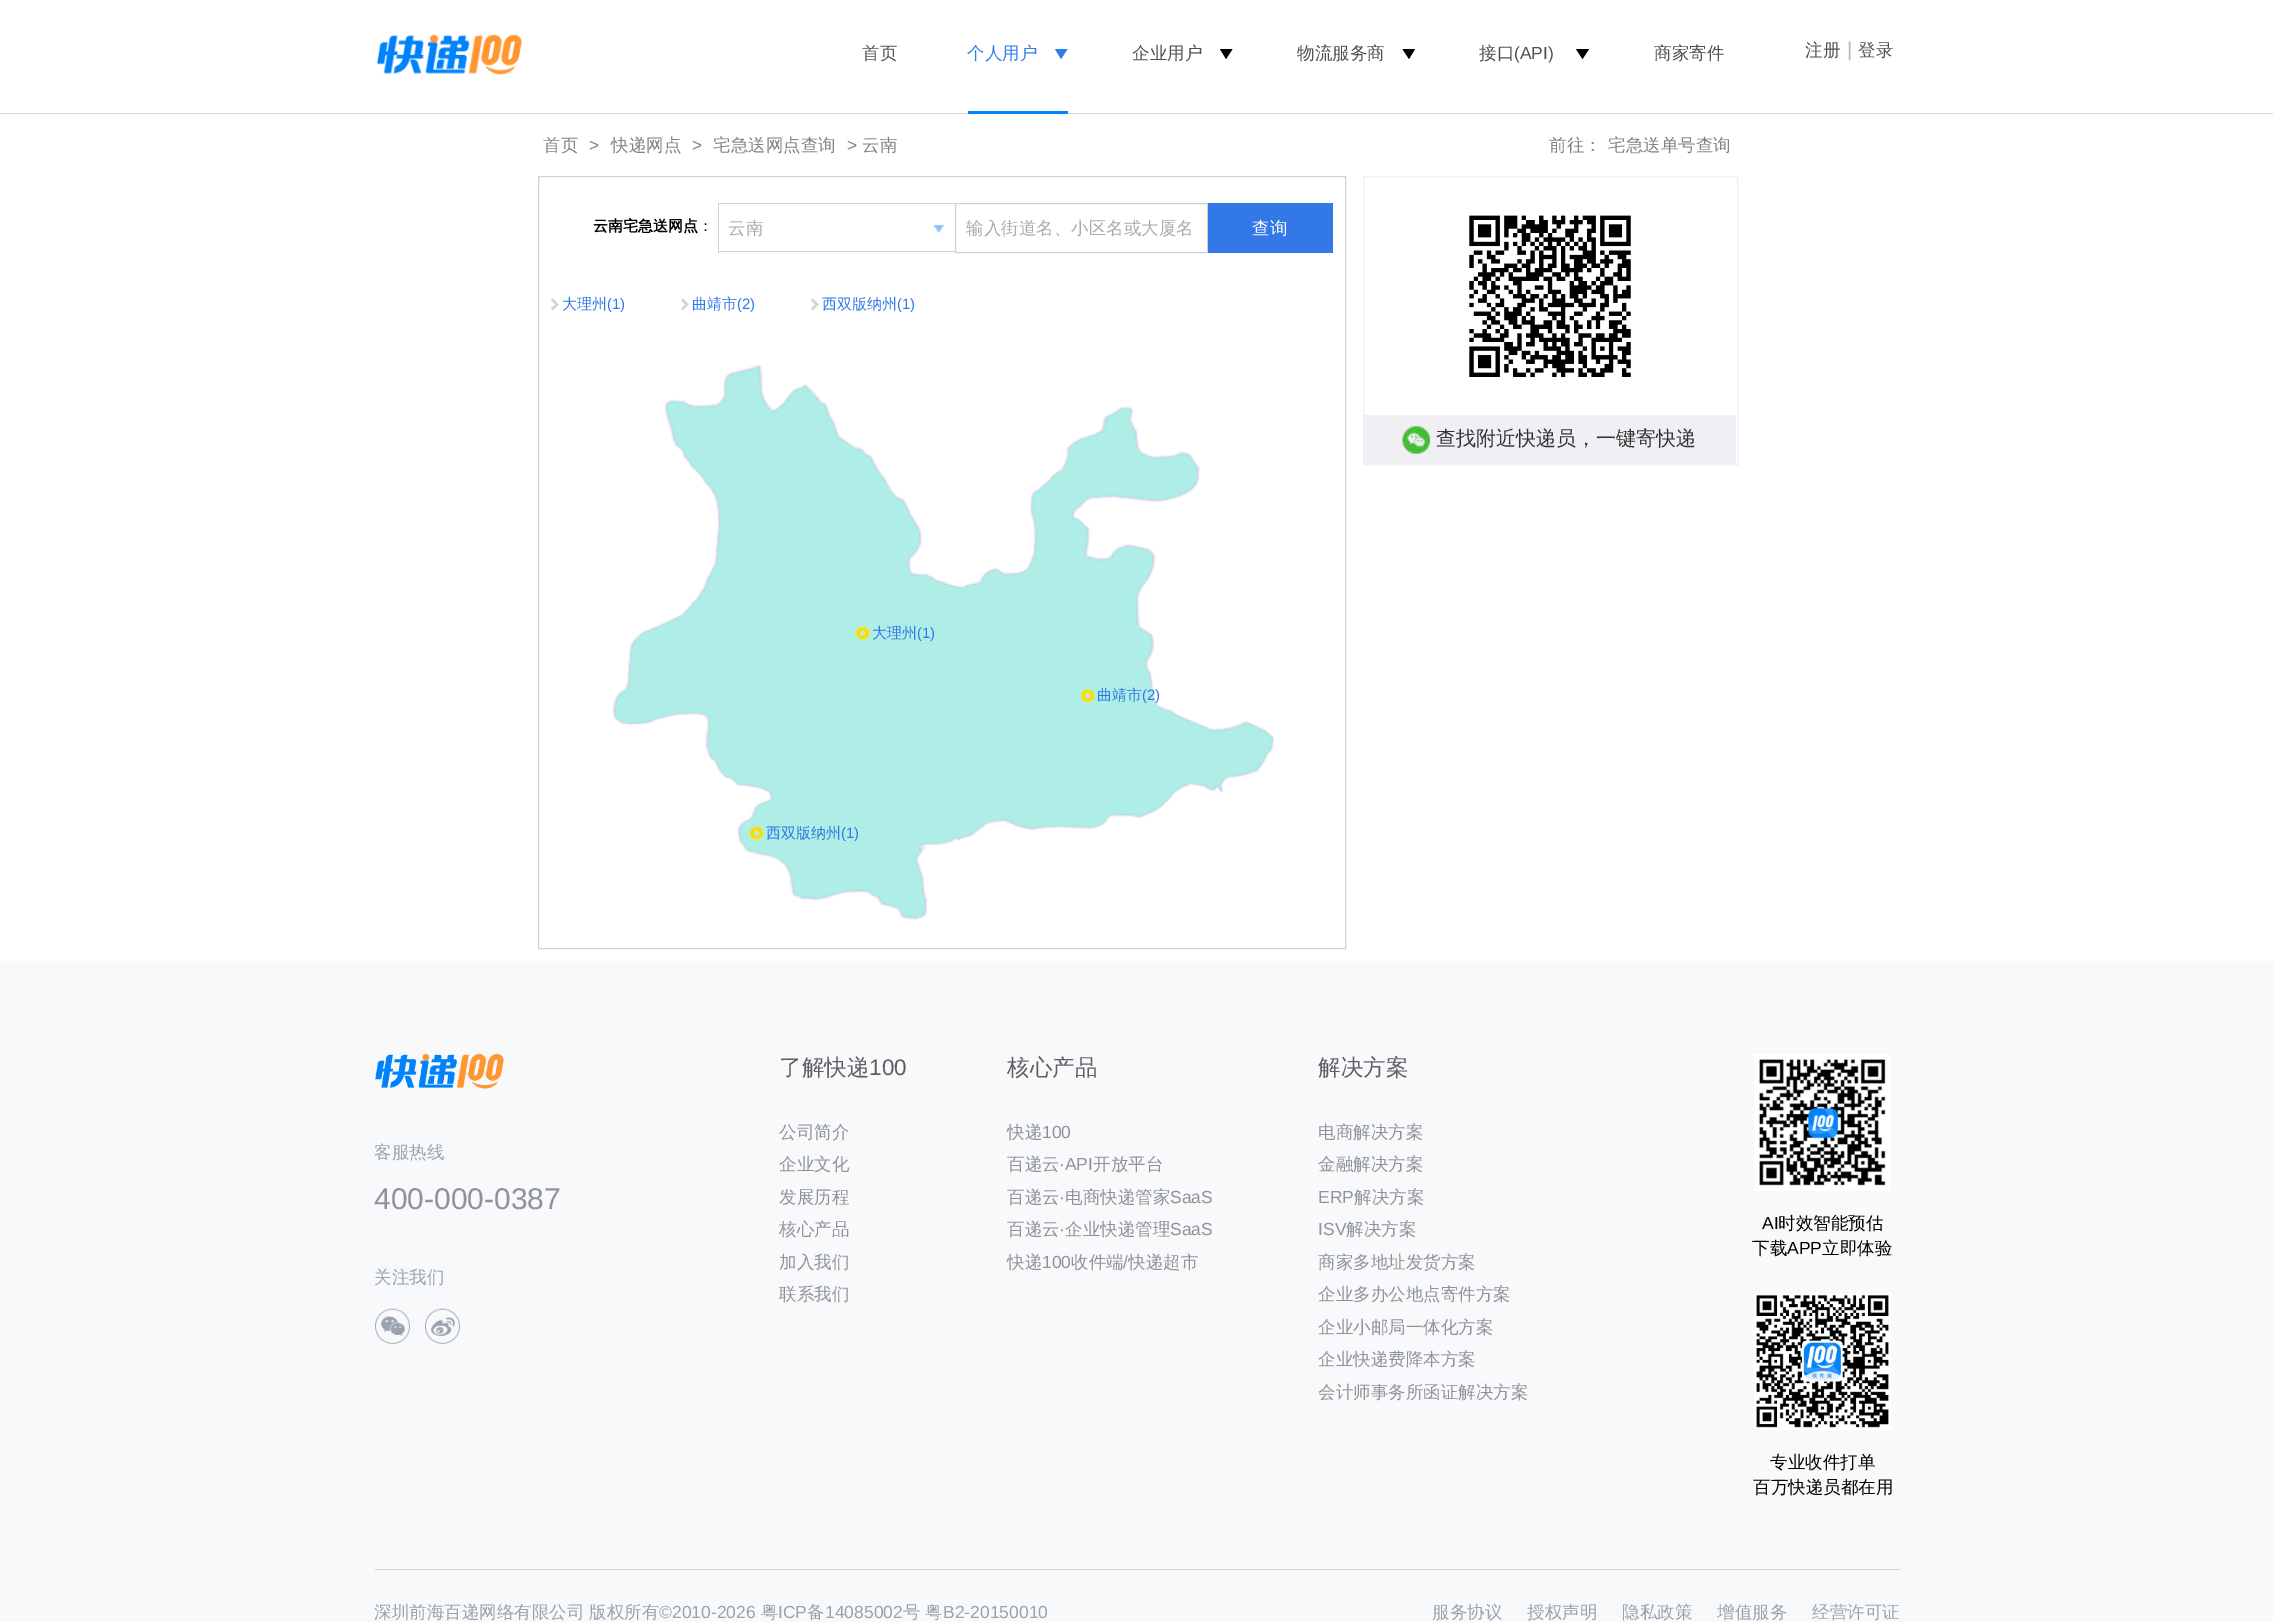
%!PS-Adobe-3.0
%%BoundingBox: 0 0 2273 1622
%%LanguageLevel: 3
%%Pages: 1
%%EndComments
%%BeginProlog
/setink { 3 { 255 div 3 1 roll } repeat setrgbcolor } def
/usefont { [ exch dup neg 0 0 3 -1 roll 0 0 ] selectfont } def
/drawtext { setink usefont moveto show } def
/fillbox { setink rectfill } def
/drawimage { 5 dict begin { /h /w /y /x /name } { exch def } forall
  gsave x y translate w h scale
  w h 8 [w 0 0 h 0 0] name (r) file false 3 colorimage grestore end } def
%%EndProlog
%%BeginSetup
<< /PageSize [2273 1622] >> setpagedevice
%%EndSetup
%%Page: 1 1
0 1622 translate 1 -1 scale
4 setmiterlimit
0 0 2273 1622 255 255 255 fillbox
(assets/img1.rgb) 377 34 145 41 drawimage
(首页) 862 59 /WenQuanYiZenHei-Medium 17.5 81 81 81 drawtext
(个人用户) 967 59 /WenQuanYiZenHei-Medium 17.5 49 126 231 drawtext
1055 49 moveto 1067.5 49 lineto 1061 59 lineto closepath fill
0 113 2273 1 215 215 215 fillbox
968 111 100 3 0 130 250 fillbox
(企业用户) 1132 59 /WenQuanYiZenHei-Medium 17.5 81 81 81 drawtext
0 0 0 setink
1220 49 moveto 1232.5 49 lineto 1226 59 lineto closepath fill
(物流服务商) 1297 59 /WenQuanYiZenHei-Medium 17.5 81 81 81 drawtext
0 0 0 setink
1402.5 49 moveto 1415 49 lineto 1409 59 lineto closepath fill
(接口) 1479 59 /WenQuanYiZenHei-Medium 17.5 81 81 81 drawtext
(\(API\)) 1514 59 /LiberationSans-Regular 17.5 81 81 81 drawtext
0 0 0 setink
1576 49 moveto 1589 49 lineto 1582.5 59 lineto closepath fill
(商家寄件) 1654 59 /WenQuanYiZenHei-Medium 17.5 81 81 81 drawtext
(注册) 1805 56 /WenQuanYiZenHei-Medium 17.5 81 81 81 drawtext
(|) 1847 56 /LiberationSans-Regular 20 187 187 187 drawtext
(登录) 1858 56 /WenQuanYiZenHei-Medium 17.5 81 81 81 drawtext
(首页) 543 151 /WenQuanYiZenHei-Medium 17.5 130 130 130 drawtext
(>) 589 151 /LiberationSans-Regular 17.5 130 130 130 drawtext
(快递网点) 611 151 /WenQuanYiZenHei-Medium 17.5 130 130 130 drawtext
(>) 692 151 /LiberationSans-Regular 17.5 130 130 130 drawtext
(宅急送网点查询) 713 151 /WenQuanYiZenHei-Medium 17.5 130 130 130 drawtext
(>) 847 151 /LiberationSans-Regular 17.5 130 130 130 drawtext
(云南) 862 151 /WenQuanYiZenHei-Medium 17.5 130 130 130 drawtext
(前往：) 1549 151 /WenQuanYiZenHei-Medium 17.5 130 130 130 drawtext
(宅急送单号查询) 1608 151 /WenQuanYiZenHei-Medium 17.5 130 130 130 drawtext
210 210 210 setink
538.5 176.5 807 772 rectstroke
(云南宅急送网点) 593 231 /WenQuanYiZenHei-Bold 15 0 0 0 drawtext
(：) 698 231 /WenQuanYiZenHei-Medium 15 0 0 0 drawtext
(assets/img2.rgb) 933 224 11 9 drawimage
718 203 237 1 210 210 210 fillbox
718 251 237 1 210 210 210 fillbox
718 203 1 50 210 210 210 fillbox
(云南) 728 234 /WenQuanYiZenHei-Medium 17.5 170 170 170 drawtext
210 210 210 setink
955.5 203.5 252 49 rectstroke
gsave
966 216 230 23 rectclip
(输入街道名、小区名或大厦名) 966 234 /WenQuanYiZenHei-Medium 17.5 170 170 170 drawtext
grestore
1208 203 125 50 50 120 230 fillbox
(查询) 1252 234 /WenQuanYiZenHei-Medium 17.5 255 255 255 drawtext
(assets/img3.rgb) 551 298 8 12 drawimage
(大理州) 562 309 /WenQuanYiZenHei-Medium 15 50 120 230 drawtext
(\(1\)) 607 309 /LiberationSans-Regular 15 50 120 230 drawtext
(assets/img3.rgb) 681 298 8 12 drawimage
(曲靖市) 692 309 /WenQuanYiZenHei-Medium 15 50 120 230 drawtext
(\(2\)) 737 309 /LiberationSans-Regular 15 50 120 230 drawtext
(assets/img3.rgb) 811 298 8 12 drawimage
(西双版纳州) 822 309 /WenQuanYiZenHei-Medium 15 50 120 230 drawtext
(\(1\)) 897 309 /LiberationSans-Regular 15 50 120 230 drawtext
(assets/img4.rgb) 612 365 662 555 drawimage
(assets/img5.rgb) 855 626 15 15 drawimage
(大理州) 872 638 /WenQuanYiZenHei-Medium 15 50 120 230 drawtext
(\(1\)) 917 638 /LiberationSans-Regular 15 50 120 230 drawtext
(assets/img6.rgb) 1080 688 15 15 drawimage
(曲靖市) 1097 700 /WenQuanYiZenHei-Medium 15 50 120 230 drawtext
(\(2\)) 1142 700 /LiberationSans-Regular 15 50 120 230 drawtext
(assets/img7.rgb) 748 826 16 15 drawimage
(西双版纳州) 766 838 /WenQuanYiZenHei-Medium 15 50 120 230 drawtext
(\(1\)) 841 838 /LiberationSans-Regular 15 50 120 230 drawtext
239 239 244 setink
1363.5 176.5 374 288 rectstroke
(assets/img8.rgb) 1469 215 162 162 drawimage
1364 415 372 49 239 239 244 fillbox
(assets/img9.rgb) 1402 426 28 28 drawimage
(查找附近快递员，一键寄快递) 1436 445 /WenQuanYiZenHei-Medium 20 51 51 51 drawtext
0 961 2273 661 248 249 250 fillbox
(assets/img10.rgb) 375 1053 129 36 drawimage
(客服热线) 374 1158 /WenQuanYiZenHei-Medium 17.5 154 162 177 drawtext
(400-000-0387) 374 1209 /LiberationSans-Regular 30 143 146 152 drawtext
(关注我们) 374 1283 /WenQuanYiZenHei-Medium 17.5 154 162 177 drawtext
(assets/img11.rgb) 375 1308 35 36 drawimage
(assets/img12.rgb) 425 1308 35 36 drawimage
(了解快递) 779 1075 /WenQuanYiZenHei-Medium 22.5 94 95 99 drawtext
(100) 869 1075 /LiberationSans-Regular 22.5 94 95 99 drawtext
(公司简介) 779 1138 /WenQuanYiZenHei-Medium 17.5 143 146 152 drawtext
(企业文化) 779 1170 /WenQuanYiZenHei-Medium 17.5 143 146 152 drawtext
(发展历程) 779 1203 /WenQuanYiZenHei-Medium 17.5 143 146 152 drawtext
(核心产品) 779 1235 /WenQuanYiZenHei-Medium 17.5 143 146 152 drawtext
(加入我们) 779 1268 /WenQuanYiZenHei-Medium 17.5 143 146 152 drawtext
(联系我们) 779 1300 /WenQuanYiZenHei-Medium 17.5 143 146 152 drawtext
(核心产品) 1007 1075 /WenQuanYiZenHei-Medium 22.5 94 95 99 drawtext
(快递) 1007 1138 /WenQuanYiZenHei-Medium 17.5 143 146 152 drawtext
(100) 1042 1138 /LiberationSans-Regular 17.5 143 146 152 drawtext
(百递云) 1007 1170 /WenQuanYiZenHei-Medium 17.5 143 146 152 drawtext
(·API) 1059 1170 /LiberationSans-Regular 17.5 143 146 152 drawtext
(开放平台) 1093 1170 /WenQuanYiZenHei-Medium 17.5 143 146 152 drawtext
(百递云) 1007 1203 /WenQuanYiZenHei-Medium 17.5 143 146 152 drawtext
(·) 1059 1203 /LiberationSans-Regular 17.5 143 146 152 drawtext
(电商快递管家) 1065 1203 /WenQuanYiZenHei-Medium 17.5 143 146 152 drawtext
(SaaS) 1170 1203 /LiberationSans-Regular 17.5 143 146 152 drawtext
(百递云) 1007 1235 /WenQuanYiZenHei-Medium 17.5 143 146 152 drawtext
(·) 1059 1235 /LiberationSans-Regular 17.5 143 146 152 drawtext
(企业快递管理) 1065 1235 /WenQuanYiZenHei-Medium 17.5 143 146 152 drawtext
(SaaS) 1170 1235 /LiberationSans-Regular 17.5 143 146 152 drawtext
(快递) 1007 1268 /WenQuanYiZenHei-Medium 17.5 143 146 152 drawtext
(100) 1042 1268 /LiberationSans-Regular 17.5 143 146 152 drawtext
(收件端) 1071 1268 /WenQuanYiZenHei-Medium 17.5 143 146 152 drawtext
(/) 1123 1268 /LiberationSans-Regular 17.5 143 146 152 drawtext
(快递超市) 1128 1268 /WenQuanYiZenHei-Medium 17.5 143 146 152 drawtext
(解决方案) 1318 1075 /WenQuanYiZenHei-Medium 22.5 94 95 99 drawtext
(电商解决方案) 1318 1138 /WenQuanYiZenHei-Medium 17.5 143 146 152 drawtext
(金融解决方案) 1318 1170 /WenQuanYiZenHei-Medium 17.5 143 146 152 drawtext
(ERP) 1318 1203 /LiberationSans-Regular 17.5 143 146 152 drawtext
(解决方案) 1354 1203 /WenQuanYiZenHei-Medium 17.5 143 146 152 drawtext
(ISV) 1318 1235 /LiberationSans-Regular 17.5 143 146 152 drawtext
(解决方案) 1346 1235 /WenQuanYiZenHei-Medium 17.5 143 146 152 drawtext
(商家多地址发货方案) 1318 1268 /WenQuanYiZenHei-Medium 17.5 143 146 152 drawtext
(企业多办公地点寄件方案) 1318 1300 /WenQuanYiZenHei-Medium 17.5 143 146 152 drawtext
(企业小邮局一体化方案) 1318 1333 /WenQuanYiZenHei-Medium 17.5 143 146 152 drawtext
(企业快递费降本方案) 1318 1365 /WenQuanYiZenHei-Medium 17.5 143 146 152 drawtext
(会计师事务所函证解决方案) 1318 1398 /WenQuanYiZenHei-Medium 17.5 143 146 152 drawtext
(assets/img13.rgb) 1754 1054 137 137 drawimage
(AI) 1762 1229 /LiberationSans-Regular 17.5 0 0 0 drawtext
(时效智能预估) 1778 1229 /WenQuanYiZenHei-Medium 17.5 0 0 0 drawtext
(下载) 1752 1254 /WenQuanYiZenHei-Medium 17.5 0 0 0 drawtext
(APP) 1787 1254 /LiberationSans-Regular 17.5 0 0 0 drawtext
(立即体验) 1822 1254 /WenQuanYiZenHei-Medium 17.5 0 0 0 drawtext
(assets/img14.rgb) 1754 1293 137 137 drawimage
(专业收件打单) 1770 1468 /WenQuanYiZenHei-Medium 17.5 0 0 0 drawtext
(百万快递员都在用) 1753 1493 /WenQuanYiZenHei-Medium 17.5 0 0 0 drawtext
375 1569 1525 1 210 210 215 fillbox
(深圳前海百递网络有限公司 版权所有) 374 1618 /WenQuanYiZenHei-Medium 17.5 154 162 177 drawtext
(©2010-2026) 659 1618 /LiberationSans-Regular 17.5 154 162 177 drawtext
(粤) 761 1618 /WenQuanYiZenHei-Medium 17.5 154 162 177 drawtext
(ICP) 778 1618 /LiberationSans-Regular 17.5 154 162 177 drawtext
(备) 807 1618 /WenQuanYiZenHei-Medium 17.5 154 162 177 drawtext
(14085002) 825 1618 /LiberationSans-Regular 17.5 154 162 177 drawtext
(号) 903 1618 /WenQuanYiZenHei-Medium 17.5 154 162 177 drawtext
(粤) 925 1618 /WenQuanYiZenHei-Medium 17.5 154 162 177 drawtext
(B2-20150010) 943 1618 /LiberationSans-Regular 17.5 154 162 177 drawtext
(服务协议) 1432 1618 /WenQuanYiZenHei-Medium 17.5 154 162 177 drawtext
(授权声明) 1527 1618 /WenQuanYiZenHei-Medium 17.5 154 162 177 drawtext
(隐私政策) 1622 1618 /WenQuanYiZenHei-Medium 17.5 154 162 177 drawtext
(增值服务) 1717 1618 /WenQuanYiZenHei-Medium 17.5 154 162 177 drawtext
(经营许可证) 1812 1618 /WenQuanYiZenHei-Medium 17.5 154 162 177 drawtext
showpage
%%EOF
